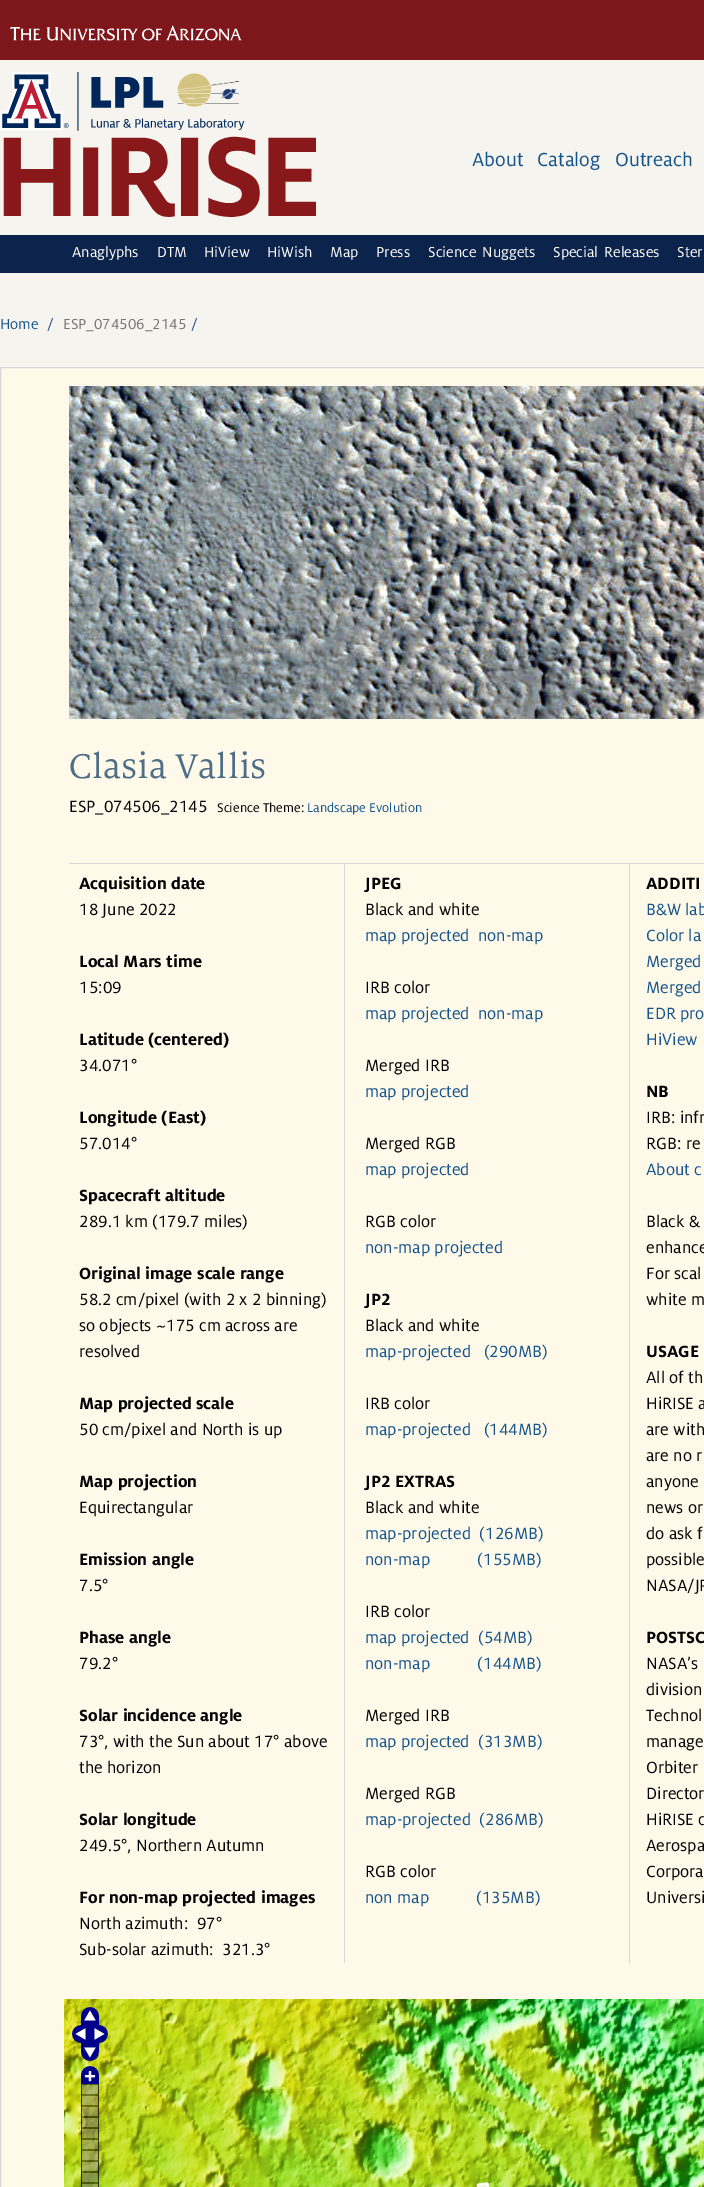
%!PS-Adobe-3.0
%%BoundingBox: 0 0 704 2187
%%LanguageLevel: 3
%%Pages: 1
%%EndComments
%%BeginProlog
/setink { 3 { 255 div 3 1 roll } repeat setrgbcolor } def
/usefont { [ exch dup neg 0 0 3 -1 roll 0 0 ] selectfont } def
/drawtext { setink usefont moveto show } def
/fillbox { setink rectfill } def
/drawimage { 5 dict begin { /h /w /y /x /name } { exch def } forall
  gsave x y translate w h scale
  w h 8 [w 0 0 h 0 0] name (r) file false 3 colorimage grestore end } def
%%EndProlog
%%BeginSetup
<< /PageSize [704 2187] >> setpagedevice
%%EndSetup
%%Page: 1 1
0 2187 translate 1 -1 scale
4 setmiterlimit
0 0 704 2187 255 255 255 fillbox
gsave 0 60 moveto 704 60 lineto 704 367 lineto 0 367 lineto closepath clip newpath
<< /ShadingType 2 /ColorSpace /DeviceRGB /Coords [0 0 0 2187] /Extend [true true] /Function << /FunctionType 2 /Domain [0 1] /C0 [0.965 0.957 0.937] /C1 [0.98 0.969 0.949] /N 1 >> >> shfill grestore
0 0 704 60 125 23 27 fillbox
(assets/img1.rgb) 10 25 232 16 drawimage
(assets/img2.rgb) 0 72 316 145 drawimage
(About) 472 166 /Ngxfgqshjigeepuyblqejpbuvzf-Regular 21 21 84 138 drawtext
(Catalog) 537 166 /Ngxfgqshjigeepuyblqejpbuvzf-Regular 21 21 84 138 drawtext
(Outreach) 615 166 /Ngxfgqshjigeepuyblqejpbuvzf-Regular 21 21 84 138 drawtext
0 235 704 38 12 35 75 fillbox
(Anaglyphs) 72 257 /Ngxfgqshjigeepuyblqejpbuvzf-Regular 16 255 255 255 drawtext
(DTM) 157 257 /Ngxfgqshjigeepuyblqejpbuvzf-Regular 16 255 255 255 drawtext
(HiView) 204 257 /Ngxfgqshjigeepuyblqejpbuvzf-Regular 16 255 255 255 drawtext
(HiWish) 267 257 /Ngxfgqshjigeepuyblqejpbuvzf-Regular 16 255 255 255 drawtext
(Map) 330 257 /Ngxfgqshjigeepuyblqejpbuvzf-Regular 16 255 255 255 drawtext
(Press) 376 257 /Ngxfgqshjigeepuyblqejpbuvzf-Regular 16 255 255 255 drawtext
428 257 moveto 2 0 32 (Science Nuggets) widthshow
553 257 moveto 2 0 32 (Special Releases) widthshow
677 257 moveto 2 0 32 (Ster) widthshow
(Home) 0 329 /Ngxfgqshjigeepuyblqejpbuvzf-Regular 16 21 84 138 drawtext
(/) 47 329 /Ngxfgqshjigeepuyblqejpbuvzf-Regular 16 30 82 136 drawtext
(ESP_074506_2145) 63 329 /Ngxfgqshjigeepuyblqejpbuvzf-Regular 16 118 118 118 drawtext
(/) 191 329 /Ngxfgqshjigeepuyblqejpbuvzf-Regular 16 30 82 136 drawtext
254 249 233 setink
0.5 367.5 moveto 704.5 367.5 lineto 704.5 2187.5 lineto 0.5 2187.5 lineto closepath gsave fill grestore
215 215 215 setink
stroke
(assets/img3.rgb) 69 386 635 333 drawimage
(Clasia Vallis) 69 778 /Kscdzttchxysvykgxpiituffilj-Regular 38 78 109 135 drawtext
(ESP_074506_2145) 69 812 /Ngxfgqshjigeepuyblqejpbuvzf-Regular 18 0 0 0 drawtext
(Science Theme:) 217 812 /Ngxfgqshjigeepuyblqejpbuvzf-Regular 14 0 0 0 drawtext
(Landscape Evolution) 307 812 /Ngxfgqshjigeepuyblqejpbuvzf-Regular 14 21 84 138 drawtext
69 863 635 1 215 215 215 fillbox
344 864 1 1099 215 215 215 fillbox
(Acquisition date) 79 889 /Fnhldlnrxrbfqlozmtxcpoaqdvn-Bold 18 0 0 0 drawtext
(18 June 2022) 79 915 /Ngxfgqshjigeepuyblqejpbuvzf-Regular 18 0 0 0 drawtext
(Local Mars time) 79 967 /Fnhldlnrxrbfqlozmtxcpoaqdvn-Bold 18 0 0 0 drawtext
(15:09) 79 993 /Ngxfgqshjigeepuyblqejpbuvzf-Regular 18 0 0 0 drawtext
(Latitude \(centered\)) 79 1045 /Fnhldlnrxrbfqlozmtxcpoaqdvn-Bold 18 0 0 0 drawtext
(34.071°) 79 1071 /Ngxfgqshjigeepuyblqejpbuvzf-Regular 18 0 0 0 drawtext
(Longitude \(East\)) 79 1123 /Fnhldlnrxrbfqlozmtxcpoaqdvn-Bold 18 0 0 0 drawtext
(57.014°) 79 1149 /Ngxfgqshjigeepuyblqejpbuvzf-Regular 18 0 0 0 drawtext
(Spacecraft altitude) 79 1201 /Fnhldlnrxrbfqlozmtxcpoaqdvn-Bold 18 0 0 0 drawtext
(289.1 km \(179.7 miles\)) 79 1227 /Ngxfgqshjigeepuyblqejpbuvzf-Regular 18 0 0 0 drawtext
(Original image scale range) 79 1279 /Fnhldlnrxrbfqlozmtxcpoaqdvn-Bold 18 0 0 0 drawtext
(58.2 cm/pixel \(with 2 x 2 binning\)) 79 1305 /Ngxfgqshjigeepuyblqejpbuvzf-Regular 18 0 0 0 drawtext
(so objects ~175 cm across are) 79 1331 /Ngxfgqshjigeepuyblqejpbuvzf-Regular 18 0 0 0 drawtext
(resolved) 79 1357 /Ngxfgqshjigeepuyblqejpbuvzf-Regular 18 0 0 0 drawtext
(Map projected scale) 79 1409 /Fnhldlnrxrbfqlozmtxcpoaqdvn-Bold 18 0 0 0 drawtext
(50 cm/pixel and North is up) 79 1435 /Ngxfgqshjigeepuyblqejpbuvzf-Regular 18 0 0 0 drawtext
(Map projection) 79 1487 /Fnhldlnrxrbfqlozmtxcpoaqdvn-Bold 18 0 0 0 drawtext
(Equirectangular) 79 1513 /Ngxfgqshjigeepuyblqejpbuvzf-Regular 18 0 0 0 drawtext
(Emission angle) 79 1565 /Fnhldlnrxrbfqlozmtxcpoaqdvn-Bold 18 0 0 0 drawtext
(7.5°) 79 1591 /Ngxfgqshjigeepuyblqejpbuvzf-Regular 18 0 0 0 drawtext
(Phase angle) 79 1643 /Fnhldlnrxrbfqlozmtxcpoaqdvn-Bold 18 0 0 0 drawtext
(79.2°) 79 1669 /Ngxfgqshjigeepuyblqejpbuvzf-Regular 18 0 0 0 drawtext
(Solar incidence angle) 79 1721 /Fnhldlnrxrbfqlozmtxcpoaqdvn-Bold 18 0 0 0 drawtext
(73°, with the Sun about 17° above) 79 1747 /Ngxfgqshjigeepuyblqejpbuvzf-Regular 18 0 0 0 drawtext
(the horizon) 79 1773 /Ngxfgqshjigeepuyblqejpbuvzf-Regular 18 0 0 0 drawtext
(Solar longitude) 79 1825 /Fnhldlnrxrbfqlozmtxcpoaqdvn-Bold 18 0 0 0 drawtext
(249.5°, Northern Autumn) 79 1851 /Ngxfgqshjigeepuyblqejpbuvzf-Regular 18 0 0 0 drawtext
(For non-map projected images) 79 1903 /Fnhldlnrxrbfqlozmtxcpoaqdvn-Bold 18 0 0 0 drawtext
(North azimuth:  97°) 79 1929 /Ngxfgqshjigeepuyblqejpbuvzf-Regular 18 0 0 0 drawtext
(Sub-solar azimuth:  321.3°) 79 1955 /Ngxfgqshjigeepuyblqejpbuvzf-Regular 18 0 0 0 drawtext
629 864 1 1099 215 215 215 fillbox
(JPEG) 365 889 /Fnhldlnrxrbfqlozmtxcpoaqdvn-Bold 18 0 0 0 drawtext
(Black and white) 365 915 /Ngxfgqshjigeepuyblqejpbuvzf-Regular 18 0 0 0 drawtext
(map projected) 365 941 /Ngxfgqshjigeepuyblqejpbuvzf-Regular 18 21 84 138 drawtext
(non-map) 478 941 /Ngxfgqshjigeepuyblqejpbuvzf-Regular 18 21 84 138 drawtext
(IRB color) 365 993 /Ngxfgqshjigeepuyblqejpbuvzf-Regular 18 0 0 0 drawtext
(map projected) 365 1019 /Ngxfgqshjigeepuyblqejpbuvzf-Regular 18 21 84 138 drawtext
(non-map) 478 1019 /Ngxfgqshjigeepuyblqejpbuvzf-Regular 18 21 84 138 drawtext
(Merged IRB) 365 1071 /Ngxfgqshjigeepuyblqejpbuvzf-Regular 18 0 0 0 drawtext
(map projected) 365 1097 /Ngxfgqshjigeepuyblqejpbuvzf-Regular 18 21 84 138 drawtext
(Merged RGB) 365 1149 /Ngxfgqshjigeepuyblqejpbuvzf-Regular 18 0 0 0 drawtext
(map projected) 365 1175 /Ngxfgqshjigeepuyblqejpbuvzf-Regular 18 21 84 138 drawtext
(RGB color) 365 1227 /Ngxfgqshjigeepuyblqejpbuvzf-Regular 18 0 0 0 drawtext
(non-map projected) 365 1253 /Ngxfgqshjigeepuyblqejpbuvzf-Regular 18 21 84 138 drawtext
(JP2) 365 1305 /Fnhldlnrxrbfqlozmtxcpoaqdvn-Bold 18 0 0 0 drawtext
(Black and white) 365 1331 /Ngxfgqshjigeepuyblqejpbuvzf-Regular 18 0 0 0 drawtext
(map-projected   \(290MB\)) 365 1357 /Ngxfgqshjigeepuyblqejpbuvzf-Regular 18 21 84 138 drawtext
(IRB color) 365 1409 /Ngxfgqshjigeepuyblqejpbuvzf-Regular 18 0 0 0 drawtext
(map-projected   \(144MB\)) 365 1435 /Ngxfgqshjigeepuyblqejpbuvzf-Regular 18 21 84 138 drawtext
(JP2 EXTRAS) 365 1487 /Fnhldlnrxrbfqlozmtxcpoaqdvn-Bold 18 0 0 0 drawtext
(Black and white) 365 1513 /Ngxfgqshjigeepuyblqejpbuvzf-Regular 18 0 0 0 drawtext
(map-projected  \(126MB\)) 365 1539 /Ngxfgqshjigeepuyblqejpbuvzf-Regular 18 21 84 138 drawtext
(non-map           \(155MB\)) 365 1565 /Ngxfgqshjigeepuyblqejpbuvzf-Regular 18 21 84 138 drawtext
(IRB color) 365 1617 /Ngxfgqshjigeepuyblqejpbuvzf-Regular 18 0 0 0 drawtext
(map projected  \(54MB\)) 365 1643 /Ngxfgqshjigeepuyblqejpbuvzf-Regular 18 21 84 138 drawtext
(non-map           \(144MB\)) 365 1669 /Ngxfgqshjigeepuyblqejpbuvzf-Regular 18 21 84 138 drawtext
(Merged IRB) 365 1721 /Ngxfgqshjigeepuyblqejpbuvzf-Regular 18 0 0 0 drawtext
(map projected  \(313MB\)) 365 1747 /Ngxfgqshjigeepuyblqejpbuvzf-Regular 18 21 84 138 drawtext
(Merged RGB) 365 1799 /Ngxfgqshjigeepuyblqejpbuvzf-Regular 18 0 0 0 drawtext
(map-projected  \(286MB\)) 365 1825 /Ngxfgqshjigeepuyblqejpbuvzf-Regular 18 21 84 138 drawtext
(RGB color) 365 1877 /Ngxfgqshjigeepuyblqejpbuvzf-Regular 18 0 0 0 drawtext
(non map           \(135MB\)) 365 1903 /Ngxfgqshjigeepuyblqejpbuvzf-Regular 18 21 84 138 drawtext
(ADDITI) 646 889 /Fnhldlnrxrbfqlozmtxcpoaqdvn-Bold 18 0 0 0 drawtext
(B&W lab) 646 915 /Ngxfgqshjigeepuyblqejpbuvzf-Regular 18 21 84 138 drawtext
(Color la) 646 941 /Ngxfgqshjigeepuyblqejpbuvzf-Regular 18 21 84 138 drawtext
(Merged) 646 967 /Ngxfgqshjigeepuyblqejpbuvzf-Regular 18 21 84 138 drawtext
(Merged) 646 993 /Ngxfgqshjigeepuyblqejpbuvzf-Regular 18 21 84 138 drawtext
(EDR pro) 646 1019 /Ngxfgqshjigeepuyblqejpbuvzf-Regular 18 21 84 138 drawtext
(HiView) 646 1045 /Ngxfgqshjigeepuyblqejpbuvzf-Regular 18 21 84 138 drawtext
(NB) 646 1097 /Fnhldlnrxrbfqlozmtxcpoaqdvn-Bold 18 0 0 0 drawtext
(IRB: infr) 646 1123 /Ngxfgqshjigeepuyblqejpbuvzf-Regular 18 0 0 0 drawtext
(RGB: re) 646 1149 /Ngxfgqshjigeepuyblqejpbuvzf-Regular 18 0 0 0 drawtext
(About c) 646 1175 /Ngxfgqshjigeepuyblqejpbuvzf-Regular 18 21 84 138 drawtext
(Black &) 646 1227 /Ngxfgqshjigeepuyblqejpbuvzf-Regular 18 0 0 0 drawtext
(enhance) 646 1253 /Ngxfgqshjigeepuyblqejpbuvzf-Regular 18 0 0 0 drawtext
(For scal) 646 1279 /Ngxfgqshjigeepuyblqejpbuvzf-Regular 18 0 0 0 drawtext
(white m) 646 1305 /Ngxfgqshjigeepuyblqejpbuvzf-Regular 18 0 0 0 drawtext
(USAGE) 646 1357 /Fnhldlnrxrbfqlozmtxcpoaqdvn-Bold 18 0 0 0 drawtext
(All of th) 646 1383 /Ngxfgqshjigeepuyblqejpbuvzf-Regular 18 0 0 0 drawtext
(HiRISE a) 646 1409 /Ngxfgqshjigeepuyblqejpbuvzf-Regular 18 0 0 0 drawtext
(are with) 646 1435 /Ngxfgqshjigeepuyblqejpbuvzf-Regular 18 0 0 0 drawtext
(are no r) 646 1461 /Ngxfgqshjigeepuyblqejpbuvzf-Regular 18 0 0 0 drawtext
(anyone) 646 1487 /Ngxfgqshjigeepuyblqejpbuvzf-Regular 18 0 0 0 drawtext
(news or) 646 1513 /Ngxfgqshjigeepuyblqejpbuvzf-Regular 18 0 0 0 drawtext
(do ask f) 646 1539 /Ngxfgqshjigeepuyblqejpbuvzf-Regular 18 0 0 0 drawtext
(possible) 646 1565 /Ngxfgqshjigeepuyblqejpbuvzf-Regular 18 0 0 0 drawtext
(NASA/JP) 646 1591 /Ngxfgqshjigeepuyblqejpbuvzf-Regular 18 0 0 0 drawtext
(POSTSC) 646 1643 /Fnhldlnrxrbfqlozmtxcpoaqdvn-Bold 18 0 0 0 drawtext
(NASA’s) 646 1669 /Ngxfgqshjigeepuyblqejpbuvzf-Regular 18 0 0 0 drawtext
(division) 646 1695 /Ngxfgqshjigeepuyblqejpbuvzf-Regular 18 0 0 0 drawtext
(Technol) 646 1721 /Ngxfgqshjigeepuyblqejpbuvzf-Regular 18 0 0 0 drawtext
(manage) 646 1747 /Ngxfgqshjigeepuyblqejpbuvzf-Regular 18 0 0 0 drawtext
(Orbiter) 646 1773 /Ngxfgqshjigeepuyblqejpbuvzf-Regular 18 0 0 0 drawtext
(Director) 646 1799 /Ngxfgqshjigeepuyblqejpbuvzf-Regular 18 0 0 0 drawtext
(HiRISE c) 646 1825 /Ngxfgqshjigeepuyblqejpbuvzf-Regular 18 0 0 0 drawtext
(Aerospa) 646 1851 /Ngxfgqshjigeepuyblqejpbuvzf-Regular 18 0 0 0 drawtext
(Corpora) 646 1877 /Ngxfgqshjigeepuyblqejpbuvzf-Regular 18 0 0 0 drawtext
(Universi) 646 1903 /Ngxfgqshjigeepuyblqejpbuvzf-Regular 18 0 0 0 drawtext
(assets/img4.rgb) 64 1999 94 174 drawimage
(assets/img5.rgb) 158 1999 256 174 drawimage
(assets/img6.rgb) 414 1999 256 174 drawimage
(assets/img7.rgb) 670 1999 34 174 drawimage
(assets/img8.rgb) 64 2173 94 14 drawimage
(assets/img9.rgb) 158 2173 256 14 drawimage
(assets/img10.rgb) 414 2173 256 14 drawimage
(assets/img11.rgb) 670 2173 34 14 drawimage
(assets/img12.rgb) 476 2182 13 5 drawimage
(assets/img13.rgb) 81 2007 18 18 drawimage
(assets/img14.rgb) 72 2025 18 18 drawimage
(assets/img15.rgb) 90 2025 18 18 drawimage
(assets/img16.rgb) 81 2043 18 18 drawimage
(assets/img17.rgb) 81 2066 18 18 drawimage
(assets/img18.rgb) 81 2084 18 103 drawimage
showpage
%%EOF
